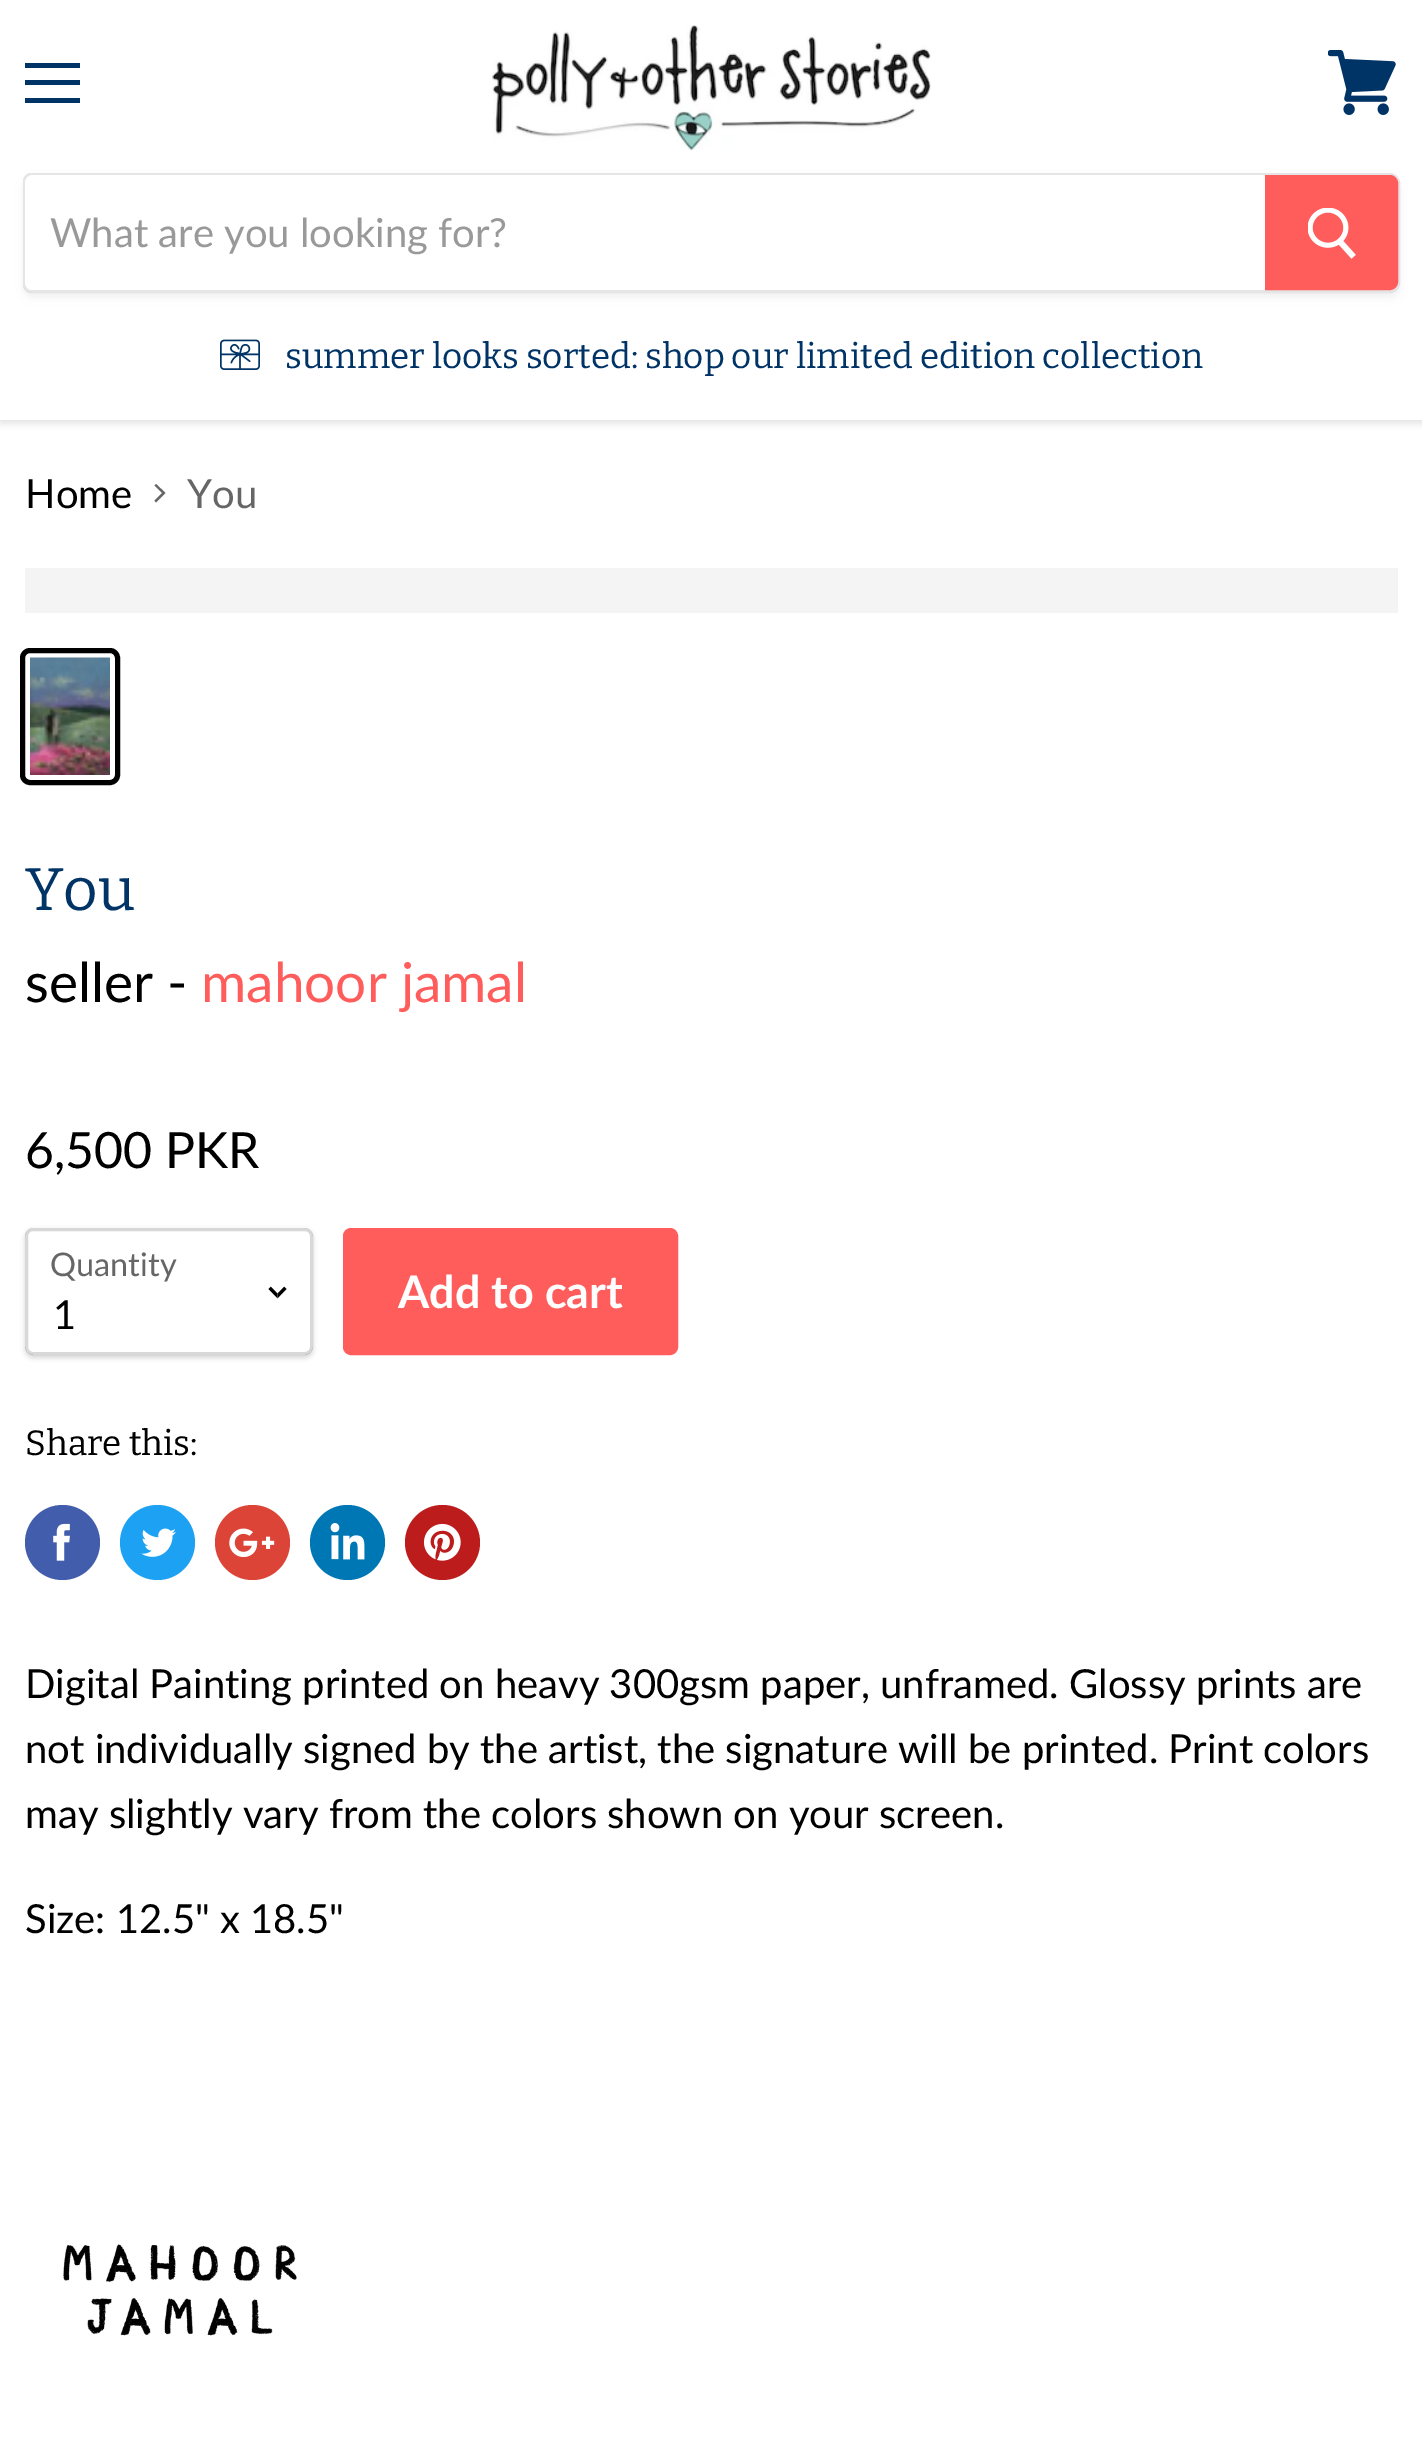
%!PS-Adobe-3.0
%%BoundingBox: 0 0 1422 2449
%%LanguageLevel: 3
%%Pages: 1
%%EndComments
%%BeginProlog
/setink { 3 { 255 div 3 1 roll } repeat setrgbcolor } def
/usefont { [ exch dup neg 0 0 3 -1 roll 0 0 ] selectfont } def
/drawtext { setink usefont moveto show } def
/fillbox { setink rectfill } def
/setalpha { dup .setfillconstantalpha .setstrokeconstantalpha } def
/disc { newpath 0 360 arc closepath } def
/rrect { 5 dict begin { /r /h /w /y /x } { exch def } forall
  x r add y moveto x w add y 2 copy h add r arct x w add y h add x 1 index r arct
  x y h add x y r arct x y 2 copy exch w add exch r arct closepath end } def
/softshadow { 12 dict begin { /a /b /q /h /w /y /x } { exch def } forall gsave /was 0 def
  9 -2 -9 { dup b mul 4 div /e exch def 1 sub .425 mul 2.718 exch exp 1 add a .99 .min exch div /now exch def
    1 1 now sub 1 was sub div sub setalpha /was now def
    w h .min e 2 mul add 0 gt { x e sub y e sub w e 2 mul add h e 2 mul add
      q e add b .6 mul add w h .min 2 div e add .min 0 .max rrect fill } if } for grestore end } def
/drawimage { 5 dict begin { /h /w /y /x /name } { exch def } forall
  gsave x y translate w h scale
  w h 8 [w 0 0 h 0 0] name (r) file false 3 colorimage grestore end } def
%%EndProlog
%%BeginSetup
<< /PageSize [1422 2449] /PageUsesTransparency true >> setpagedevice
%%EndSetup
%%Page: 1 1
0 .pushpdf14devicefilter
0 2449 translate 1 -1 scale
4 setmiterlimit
0 0 1422 2449 255 255 255 fillbox
gsave
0 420 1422 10 rectclip
127 127 127 setink
0 3 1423 420 0 5 0.25 softshadow
grestore
25 63 55 5 0 51 102 fillbox
25 80 55 5 0 51 102 fillbox
25 98 55 5 0 51 102 fillbox
(assets/img1.rgb) 1328 50 68 65 drawimage
(assets/img2.rgb) 492 25 439 125 drawimage
gsave
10 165 moveto 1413 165 lineto 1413 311 lineto 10 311 lineto closepath 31 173 moveto 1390 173 lineto 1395.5 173 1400 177.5 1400 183 curveto 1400 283 lineto 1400 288.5 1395.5 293 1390 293 curveto 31 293 lineto 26.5 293 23 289.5 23 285 curveto 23 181 lineto 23 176.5 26.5 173 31 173 curveto closepath eoclip newpath
127 127 127 setink
23 178 1377 120 10 4 0.11 softshadow
grestore
0.2 setalpha
127 127 127 setink
3 setlinewidth
31 174.5 moveto 1390 174.5 lineto 1394.5 174.5 1398.5 178.5 1398.5 183 curveto 1398.5 283 lineto 1398.5 287.5 1394.5 291.5 1390 291.5 curveto 31 291.5 lineto 27.5 291.5 24.5 288.5 24.5 285 curveto 24.5 181 lineto 24.5 177.5 27.5 174.5 31 174.5 curveto closepath stroke
1 setalpha
255 255 255 setink
33 175 moveto 1265 175 lineto 1265 290 lineto 33 290 lineto 28.5 290 25 286.5 25 282 curveto 25 183 lineto 25 178.5 28.5 175 33 175 curveto closepath fill
(What are you looking for?) 50 247 /Lato-Regular 40 153 153 153 drawtext
255 92 92 setink
1266.5 176.5 moveto 1390 176.5 lineto 1393.5 176.5 1396.5 179.5 1396.5 183 curveto 1396.5 282 lineto 1396.5 285.5 1393.5 288.5 1390 288.5 curveto 1266.5 288.5 lineto closepath gsave fill grestore
stroke
(assets/img3.rgb) 1308 208 48 51 drawimage
(assets/img4.rgb) 220 339 40 31 drawimage
(summer looks sorted: shop our limited edition collection) 285 368 /Bitter-Regular 35 0 51 102 drawtext
(Home) 25 508 /Lato-Regular 40 0 0 0 drawtext
102 102 102 setink
154.5 500.5 moveto 156 502.5 lineto 165.5 493 lineto 156 484 lineto 154.5 485.5 lineto 162 493 lineto closepath eofill
(You) 187 508 /Lato-Regular 40 102 102 102 drawtext
25 568 1373 45 244 244 244 fillbox
0 0 0 setink
5 setlinewidth
22.5 650.5 95 132 7.5 rrect stroke
(assets/img5.rgb) 30 657 80 118 drawimage
(You) 25 910 /Bitter-Regular 60 0 51 102 drawtext
(seller -) 25 1002 /Lato-Regular 55 0 0 0 drawtext
(mahoor jamal) 201 1002 /Lato-Regular 55 255 92 92 drawtext
(6,500 PKR) 25 1168 /Lato-Regular 50 0 0 0 drawtext
gsave
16 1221 moveto 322 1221 lineto 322 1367 lineto 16 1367 lineto closepath 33 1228 moveto 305 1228 lineto 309.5 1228 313 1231.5 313 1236 curveto 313 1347 lineto 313 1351.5 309.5 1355 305 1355 curveto 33 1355 lineto 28.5 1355 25 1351.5 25 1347 curveto 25 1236 lineto 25 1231.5 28.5 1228 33 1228 curveto closepath eoclip newpath
25 1230 288 128 8 2.5 0.15 softshadow
grestore
0.3 setalpha
127 127 127 setink
3 setlinewidth
26.5 1229.5 285 124 6.5 rrect stroke
1 setalpha
(Quantity) 50 1276 /Lato-Regular 32.5 102 102 102 drawtext
(assets/img6.rgb) 268 1286 19 13 drawimage
(1) 53 1329 /Lato-Regular 40 0 0 0 drawtext
255 92 92 setink
344.5 1229.5 332 124 6.5 rrect gsave fill grestore
stroke
(Add to cart) 398 1308 /Lato-Bold 45 255 255 255 drawtext
(Share this:) 25 1455 /Bitter-Regular 35 0 0 0 drawtext
66 93 171 setink
62.5 1542.5 37.5 disc fill
(assets/img7.rgb) 53 1523 17 38 drawimage
29 161 242 setink
157.5 1542.5 37.5 disc fill
(assets/img8.rgb) 141 1528 35 29 drawimage
219 68 55 setink
252.5 1542.5 37.5 disc fill
(assets/img9.rgb) 229 1528 46 30 drawimage
0 119 181 setink
347.5 1542.5 37.5 disc fill
(assets/img10.rgb) 330 1523 35 37 drawimage
189 28 28 setink
442.5 1542.5 37.5 disc fill
(assets/img11.rgb) 423 1523 38 38 drawimage
(Digital Painting printed on heavy 300gsm paper, unframed. Glossy prints are) 25 1698 /Lato-Regular 40 0 0 0 drawtext
(not individually signed by the artist, the signature will be printed. Print colors) 25 1763 /Lato-Regular 40 0 0 0 drawtext
(may slightly vary from the colors shown on your screen.) 25 1828 /Lato-Regular 40 0 0 0 drawtext
(Size: 12.5" x 18.5") 25 1933 /Lato-Regular 40 0 0 0 drawtext
(assets/img12.rgb) 63 2244 234 92 drawimage
.poppdf14devicefilter showpage
%%EOF
